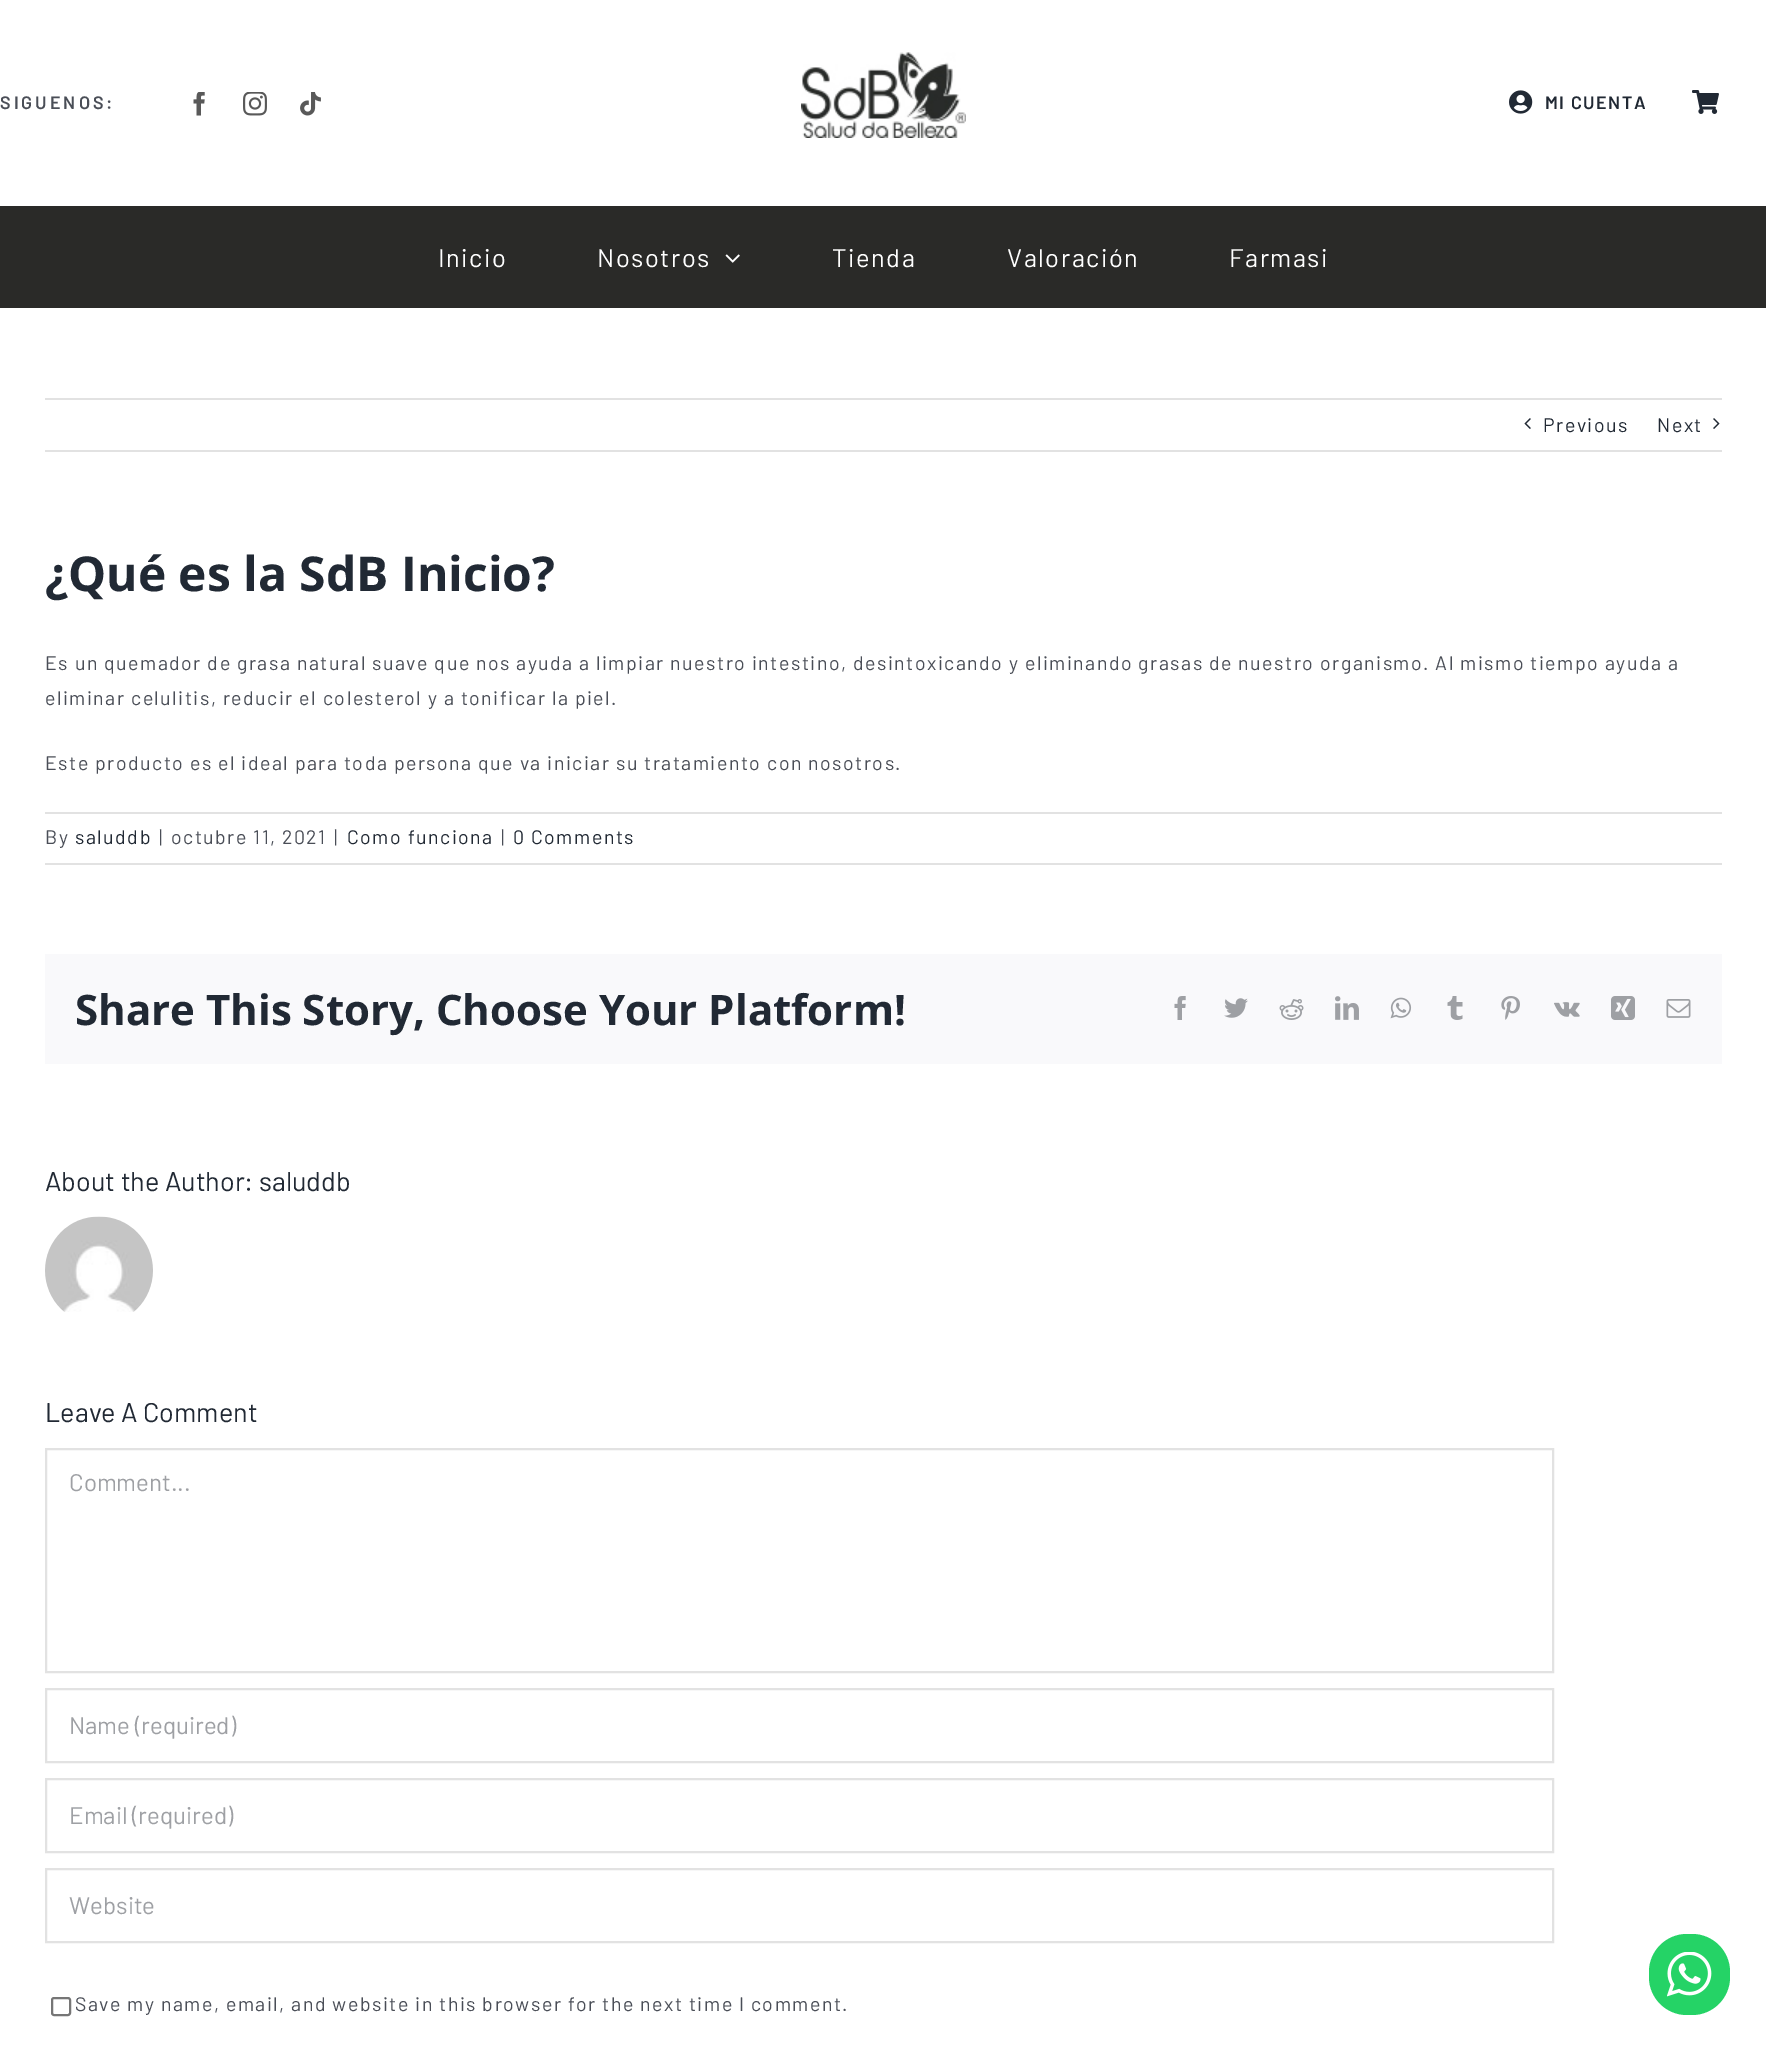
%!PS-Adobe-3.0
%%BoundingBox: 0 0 1766 2052
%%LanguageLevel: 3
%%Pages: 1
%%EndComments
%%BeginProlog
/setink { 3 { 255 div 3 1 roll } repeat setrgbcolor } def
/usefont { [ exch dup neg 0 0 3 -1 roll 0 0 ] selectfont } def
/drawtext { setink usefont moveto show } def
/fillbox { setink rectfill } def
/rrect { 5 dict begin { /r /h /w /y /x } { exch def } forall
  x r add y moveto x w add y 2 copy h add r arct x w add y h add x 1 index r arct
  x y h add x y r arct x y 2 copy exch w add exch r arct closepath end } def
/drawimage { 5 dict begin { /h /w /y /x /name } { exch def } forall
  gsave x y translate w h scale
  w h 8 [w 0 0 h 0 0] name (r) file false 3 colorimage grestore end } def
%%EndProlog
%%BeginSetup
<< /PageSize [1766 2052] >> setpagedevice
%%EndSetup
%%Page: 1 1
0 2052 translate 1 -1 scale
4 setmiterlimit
0 0 1766 2052 255 255 255 fillbox
/Barlow-SemiBold 18 usefont
74 78 87 setink
0 109 moveto 3 0 (SIGUENOS:) ashow
(assets/img1.rgb) 193 92 12 24 drawimage
(assets/img2.rgb) 243 92 24 24 drawimage
(assets/img3.rgb) 300 92 21 24 drawimage
(assets/img4.rgb) 801 52 165 86 drawimage
(assets/img5.rgb) 1509 90 24 24 drawimage
33 41 52 setink
1545 109 moveto 1.5 0 (MI CUENTA) ashow
(assets/img6.rgb) 1692 90 27 24 drawimage
0 206 1766 102 42 42 40 fillbox
/Barlow-Regular 25.5 usefont
255 255 255 setink
438 267 moveto 1.5 0 (Inicio) ashow
597 267 moveto 1.5 0 (Nosotros) ashow
(assets/img7.rgb) 725 254 15 9 drawimage
832 267 moveto 1.5 0 (Tienda) ashow
1007 267 moveto 1.5 0 (Valoración) ashow
1229 267 moveto 1.5 0 (Farmasi) ashow
45 398 1677 2 226 226 226 fillbox
45 450 1677 2 226 226 226 fillbox
(assets/img8.rgb) 1524 418 7 11 drawimage
/Barlow-Regular 19.5 usefont
33 41 52 setink
1543 432 moveto 1.5 0 (Previous) ashow
1657 432 moveto 1.5 0 (Next) ashow
(assets/img9.rgb) 1713 418 7 11 drawimage
(¿Qué es la SdB Inicio?) 45 591 /OpenSans-Bold 48 33 41 52 drawtext
/Barlow-Regular 19.5 usefont
74 78 87 setink
45 670 moveto 1.5 0 (Es un quemador de grasa natural suave que nos ayuda a limpiar nuestro intestino, desintoxicando y eliminando grasas de nuestro organismo. Al mismo tiempo ayuda a) ashow
45 705 moveto 1.5 0 (eliminar celulitis, reducir el colesterol y a tonificar la piel.) ashow
45 770 moveto 1.5 0 (Este producto es el ideal para toda persona que va iniciar su tratamiento con nosotros.) ashow
45 812 1677 2 226 226 226 fillbox
45 863 1677 2 226 226 226 fillbox
74 78 87 setink
45 844 moveto 1.5 0 (By) ashow
33 41 52 setink
75 844 moveto 1.5 0 (saluddb) ashow
74 78 87 setink
159 844 moveto 1.5 0 (|) ashow
171 844 moveto 1.5 0 (octubre 11, 2021) ashow
334 844 moveto 1.5 0 (|) ashow
33 41 52 setink
347 844 moveto 1.5 0 (Como funciona) ashow
74 78 87 setink
501 844 moveto 1.5 0 (|) ashow
33 41 52 setink
513 844 moveto 1.5 0 (0 Comments) ashow
45 954 1677 110 249 249 251 fillbox
(Share This Story, Choose Your Platform!) 75 1025 /OpenSans-Bold 42 33 41 52 drawtext
(assets/img10.rgb) 1174 996 12 24 drawimage
(assets/img11.rgb) 1224 998 24 20 drawimage
(assets/img12.rgb) 1279 999 25 21 drawimage
(assets/img13.rgb) 1335 996 24 24 drawimage
(assets/img14.rgb) 1390 997 22 22 drawimage
(assets/img15.rgb) 1447 996 16 24 drawimage
(assets/img16.rgb) 1501 996 19 24 drawimage
(assets/img17.rgb) 1554 1002 26 15 drawimage
(assets/img18.rgb) 1611 996 24 24 drawimage
(assets/img19.rgb) 1666 999 25 19 drawimage
(About the Author: saluddb) 45 1191 /Barlow-Regular 27 33 41 52 drawtext
(assets/img20.rgb) 45 1216 108 96 drawimage
(Leave A Comment) 45 1422 /Barlow-Regular 27 33 41 52 drawtext
226 226 226 setink
2 setlinewidth
46 1449 1507 223 rectstroke
(Comment...) 69 1491 /Barlow-Regular 24 158 160 164 drawtext
226 226 226 setink
46 1689 1507 73 rectstroke
(Name \(required\)) 69 1734 /Barlow-Regular 24 158 160 164 drawtext
226 226 226 setink
46 1779 1507 73 rectstroke
(Email \(required\)) 69 1824 /Barlow-Regular 24 158 160 164 drawtext
226 226 226 setink
46 1869 1507 73 rectstroke
(Website) 69 1914 /Barlow-Regular 24 158 160 164 drawtext
118 118 118 setink
52 1998 18 17 2 rrect stroke
/Barlow-Regular 19.5 usefont
74 78 87 setink
75 2011 moveto 1.5 0 (Save my name, email, and website in this browser for the next time I comment.) ashow
37 211 102 setink
1649 1934 81 81 38 rrect fill
(assets/img21.rgb) 1667 1952 45 45 drawimage
showpage
%%EOF
